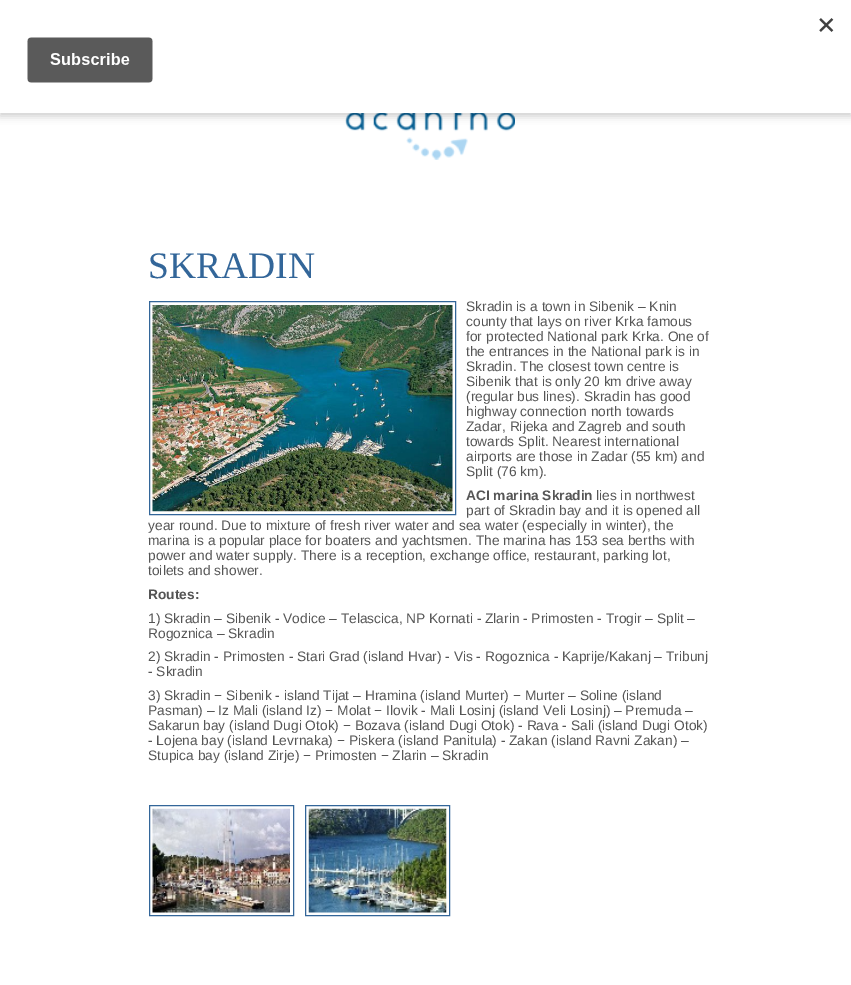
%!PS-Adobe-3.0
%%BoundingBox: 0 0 851 985
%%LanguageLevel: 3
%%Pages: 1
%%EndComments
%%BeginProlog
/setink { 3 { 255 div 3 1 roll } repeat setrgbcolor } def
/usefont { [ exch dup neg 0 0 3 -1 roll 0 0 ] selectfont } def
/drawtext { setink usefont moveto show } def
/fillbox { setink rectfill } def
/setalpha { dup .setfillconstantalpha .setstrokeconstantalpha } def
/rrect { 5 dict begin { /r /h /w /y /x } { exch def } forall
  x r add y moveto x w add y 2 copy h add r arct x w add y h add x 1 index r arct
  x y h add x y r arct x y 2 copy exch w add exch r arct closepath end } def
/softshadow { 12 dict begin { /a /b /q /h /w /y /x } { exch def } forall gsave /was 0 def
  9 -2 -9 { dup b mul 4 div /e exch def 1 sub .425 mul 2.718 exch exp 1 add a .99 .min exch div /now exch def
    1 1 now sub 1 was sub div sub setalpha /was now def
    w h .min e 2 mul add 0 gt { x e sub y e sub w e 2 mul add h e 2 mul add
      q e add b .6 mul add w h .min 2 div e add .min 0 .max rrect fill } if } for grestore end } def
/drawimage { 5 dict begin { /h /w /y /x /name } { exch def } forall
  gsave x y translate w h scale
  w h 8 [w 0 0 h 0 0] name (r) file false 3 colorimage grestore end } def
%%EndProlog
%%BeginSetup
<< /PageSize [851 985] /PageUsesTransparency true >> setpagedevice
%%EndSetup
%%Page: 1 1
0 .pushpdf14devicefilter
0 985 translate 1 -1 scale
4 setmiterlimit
0 0 851 985 255 255 255 fillbox
(assets/img2.rgb) 345 113 170 47 drawimage
(assets/img3.rgb) 639 113 87 12 drawimage
0 0 0 setink
0 4 851 112 0 4 0.2 softshadow
0 0 851 113 255 255 255 fillbox
(assets/img1.rgb) 27 18 807 65 drawimage
(SKRADIN) 148 278 /LiberationSerif-Regular 37.5 51 102 153 drawtext
149.5 301.5 306 213 rectstroke
(assets/img4.rgb) 152 305 301 207 drawimage
(Skradin is a town in Sibenik – Knin) 466 311 /LiberationSans-Regular 13.75 85 85 85 drawtext
(county that lays on river Krka famous) 466 326 /LiberationSans-Regular 13.75 85 85 85 drawtext
(for protected National park Krka. One of) 466 341 /LiberationSans-Regular 13.75 85 85 85 drawtext
(the entrances in the National park is in) 466 356 /LiberationSans-Regular 13.75 85 85 85 drawtext
(Skradin. The closest town centre is) 466 371 /LiberationSans-Regular 13.75 85 85 85 drawtext
(Sibenik that is only 20 km drive away) 466 386 /LiberationSans-Regular 13.75 85 85 85 drawtext
(\(regular bus lines\). Skradin has good) 466 401 /LiberationSans-Regular 13.75 85 85 85 drawtext
(highway connection north towards) 466 416 /LiberationSans-Regular 13.75 85 85 85 drawtext
(Zadar, Rijeka and Zagreb and south) 466 431 /LiberationSans-Regular 13.75 85 85 85 drawtext
(towards Split. Nearest international) 466 446 /LiberationSans-Regular 13.75 85 85 85 drawtext
(airports are those in Zadar \(55 km\) and) 466 461 /LiberationSans-Regular 13.75 85 85 85 drawtext
(Split \(76 km\).) 466 476 /LiberationSans-Regular 13.75 85 85 85 drawtext
(ACI marina Skradin) 466 500 /LiberationSans-Bold 13.75 85 85 85 drawtext
(lies in northwest) 596 500 /LiberationSans-Regular 13.75 85 85 85 drawtext
(part of Skradin bay and it is opened all) 466 515 /LiberationSans-Regular 13.75 85 85 85 drawtext
(year round. Due to mixture of fresh river water and sea water \(especially in winter\), the) 148 530 /LiberationSans-Regular 13.75 85 85 85 drawtext
(marina is a popular place for boaters and yachtsmen. The marina has 153 sea berths with) 148 545 /LiberationSans-Regular 13.75 85 85 85 drawtext
(power and water supply. There is a reception, exchange office, restaurant, parking lot,) 148 560 /LiberationSans-Regular 13.75 85 85 85 drawtext
(toilets and shower.) 148 575 /LiberationSans-Regular 13.75 85 85 85 drawtext
(Routes:) 148 599 /LiberationSans-Bold 13.75 85 85 85 drawtext
(1\) Skradin – Sibenik - Vodice – Telascica, NP Kornati - Zlarin - Primosten - Trogir – Split –) 148 623 /LiberationSans-Regular 13.75 85 85 85 drawtext
(Rogoznica – Skradin) 148 638 /LiberationSans-Regular 13.75 85 85 85 drawtext
(2\) Skradin - Primosten - Stari Grad \(island Hvar\) - Vis - Rogoznica - Kaprije/Kakanj – Tribunj) 148 661 /LiberationSans-Regular 13.75 85 85 85 drawtext
(- Skradin) 148 676 /LiberationSans-Regular 13.75 85 85 85 drawtext
(3\) Skradin − Sibenik - island Tijat – Hramina \(island Murter\) − Murter – Soline \(island) 148 700 /LiberationSans-Regular 13.75 85 85 85 drawtext
(Pasman\) – Iz Mali \(island Iz\) − Molat − Ilovik - Mali Losinj \(island Veli Losinj\) – Premuda –) 148 715 /LiberationSans-Regular 13.75 85 85 85 drawtext
(Sakarun bay \(island Dugi Otok\) − Bozava \(island Dugi Otok\) - Rava - Sali \(island Dugi Otok\)) 148 730 /LiberationSans-Regular 13.75 85 85 85 drawtext
(- Lojena bay \(island Levrnaka\) − Piskera \(island Panitula\) - Zakan \(island Ravni Zakan\) –) 148 745 /LiberationSans-Regular 13.75 85 85 85 drawtext
(Stupica bay \(island Zirje\) − Primosten − Zlarin – Skradin) 148 760 /LiberationSans-Regular 13.75 85 85 85 drawtext
51 102 153 setink
149.5 805.5 144 110 rectstroke
305.5 805.5 144 110 rectstroke
(assets/img5.rgb) 152 808 138 105 drawimage
(assets/img6.rgb) 308 808 139 105 drawimage
.poppdf14devicefilter showpage
%%EOF
